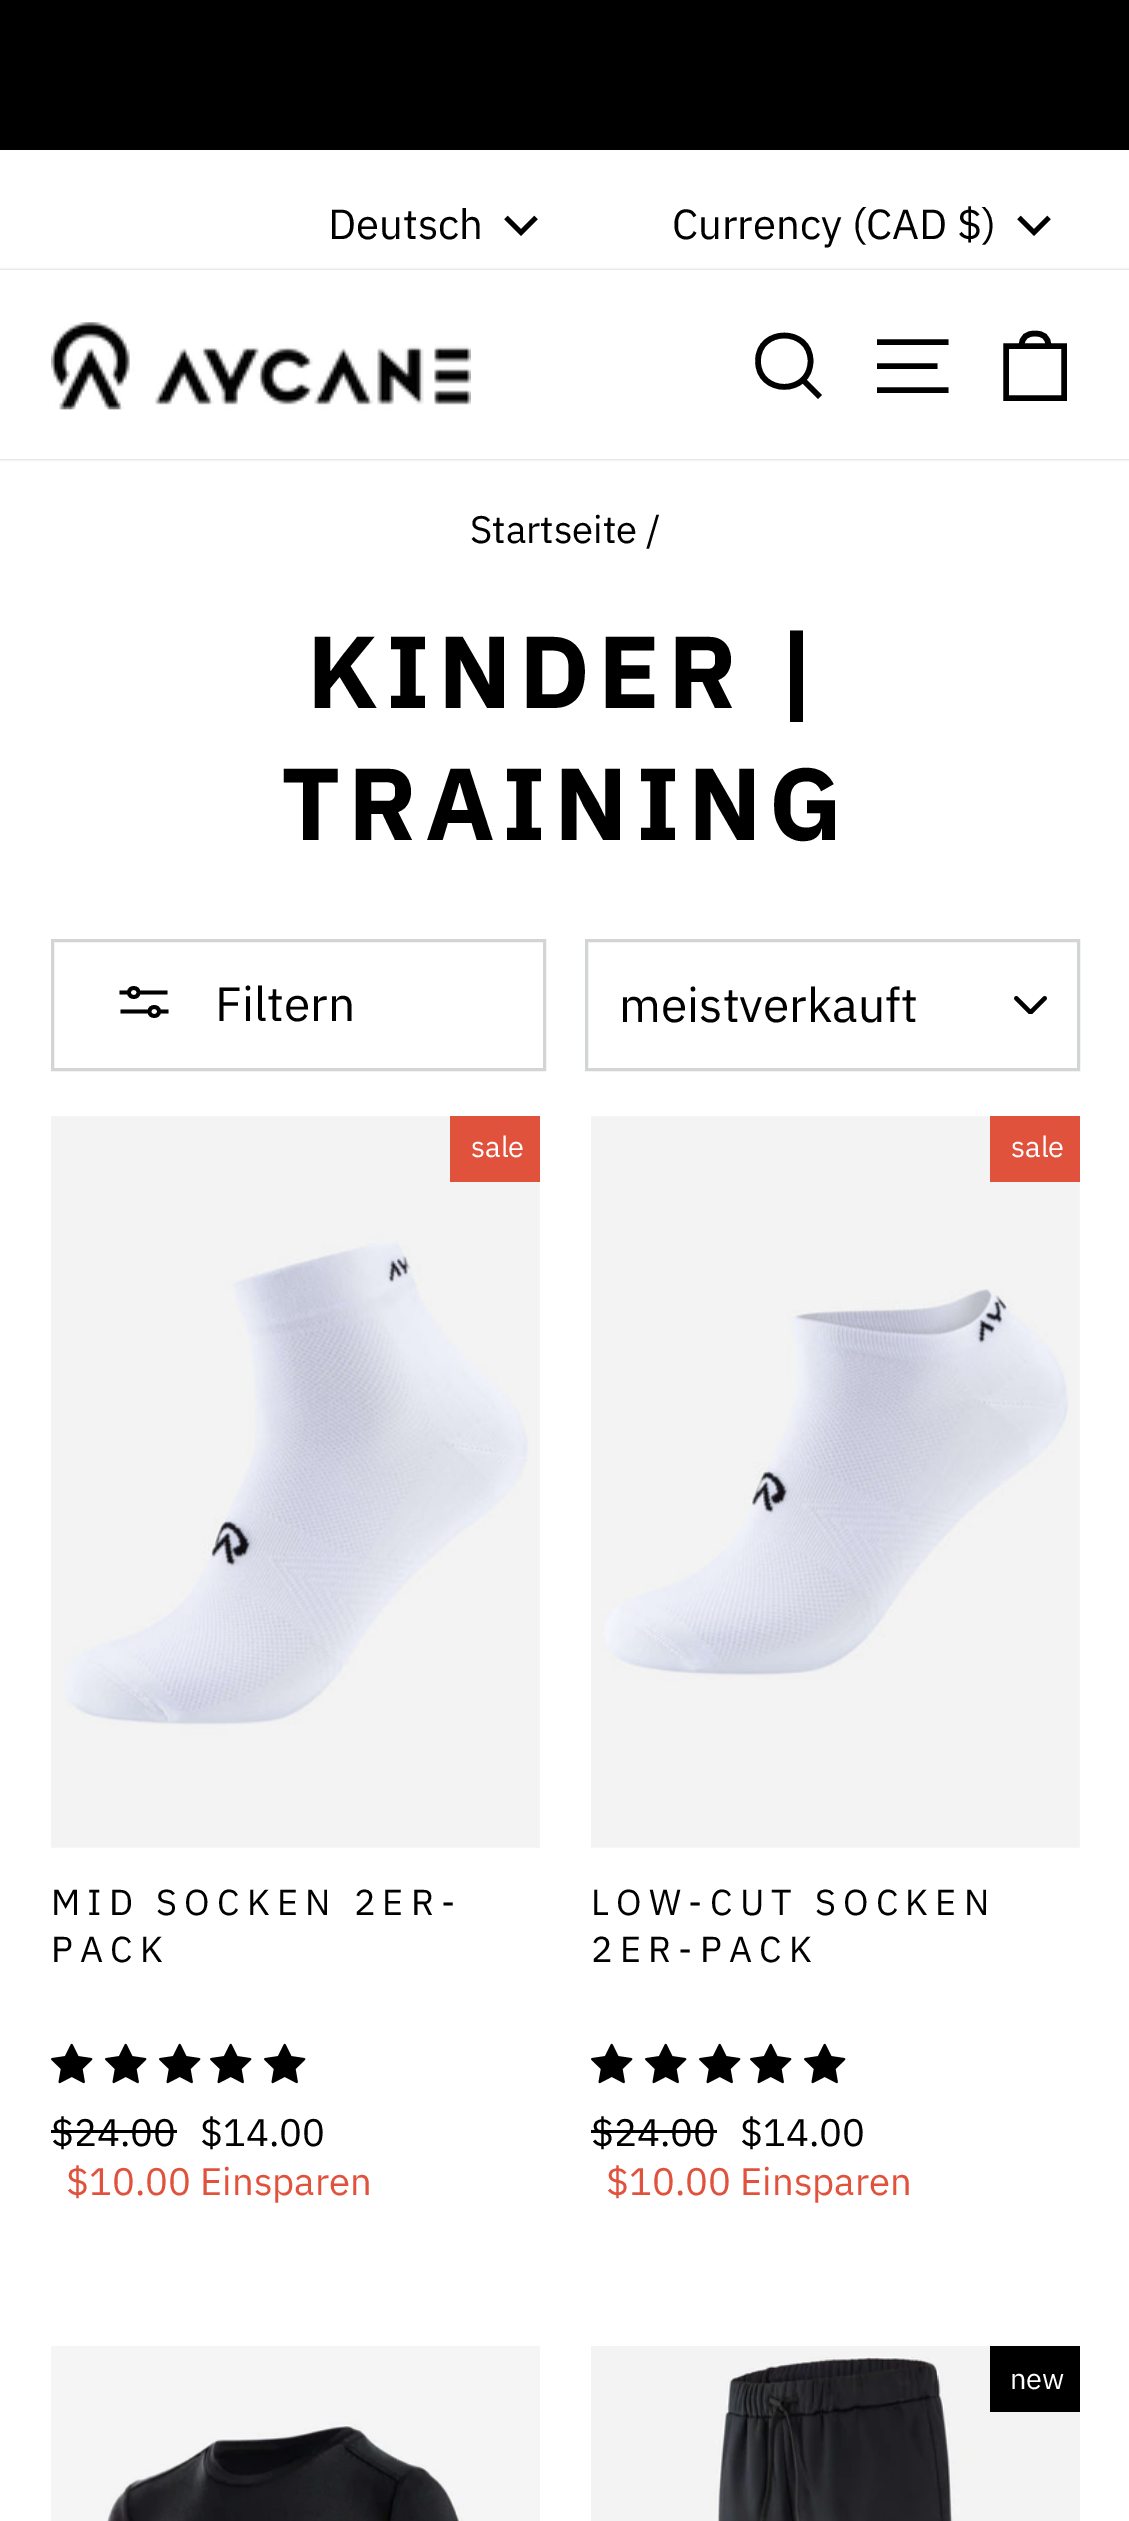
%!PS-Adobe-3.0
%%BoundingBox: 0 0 1129 2521
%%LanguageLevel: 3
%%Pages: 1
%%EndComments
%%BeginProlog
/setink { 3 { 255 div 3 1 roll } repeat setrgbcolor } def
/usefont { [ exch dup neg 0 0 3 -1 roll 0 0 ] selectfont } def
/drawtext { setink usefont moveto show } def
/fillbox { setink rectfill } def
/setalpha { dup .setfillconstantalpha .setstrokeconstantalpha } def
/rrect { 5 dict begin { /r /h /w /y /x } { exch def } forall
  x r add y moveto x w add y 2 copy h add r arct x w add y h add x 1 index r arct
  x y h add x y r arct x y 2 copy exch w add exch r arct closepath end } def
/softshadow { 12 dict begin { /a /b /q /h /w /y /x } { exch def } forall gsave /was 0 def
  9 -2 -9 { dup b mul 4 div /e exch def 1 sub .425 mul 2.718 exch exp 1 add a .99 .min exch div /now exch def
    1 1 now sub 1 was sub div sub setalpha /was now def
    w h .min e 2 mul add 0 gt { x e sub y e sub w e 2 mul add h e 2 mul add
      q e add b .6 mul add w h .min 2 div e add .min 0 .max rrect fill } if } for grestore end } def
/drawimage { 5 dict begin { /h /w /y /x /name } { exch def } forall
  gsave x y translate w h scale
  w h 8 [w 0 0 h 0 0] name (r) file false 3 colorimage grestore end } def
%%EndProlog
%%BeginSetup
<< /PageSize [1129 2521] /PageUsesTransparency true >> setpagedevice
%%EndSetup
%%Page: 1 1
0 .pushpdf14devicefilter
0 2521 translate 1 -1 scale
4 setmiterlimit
0 0 1129 2521 255 255 255 fillbox
0 0 1129 150 0 0 0 fillbox
(Deutsch) 328 239 /IBMPlexSans-Regular 42 0 0 0 drawtext
4.7 setlinewidth
506 217.5 moveto 521 232.5 lineto 536 217.5 lineto stroke
(Currency \(CAD $\)) 672 239 /IBMPlexSans-Regular 42 0 0 0 drawtext
1019 217.5 moveto 1034 232.5 lineto 1049 217.5 lineto stroke
gsave
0 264 moveto 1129 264 lineto 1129 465 lineto 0 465 lineto closepath 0 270 moveto 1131 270 lineto 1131 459 lineto 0 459 lineto closepath eoclip newpath
0 270 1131 189 0 1.5 0.2 softshadow
grestore
(assets/img1.rgb) 51 322 420 88 drawimage
5.6 setlinewidth
810.5 361 moveto 810.5 395.5 758 395.5 758 361 curveto 758 327 810.5 327 810.5 361 curveto closepath 820 397 moveto 803 380 lineto stroke
877 342 moveto 948.5 342 lineto 877 366 moveto 937.5 366 lineto 877 390 moveto 948.5 390 lineto stroke
1006 346 moveto 1064 346 lineto 1064 398 lineto 1006 398 lineto closepath stroke
1021.5 346.5 moveto 1021.5 336.5 1027.5 333.5 1035 333.5 curveto 1042.5 333.5 1048.5 336.5 1048.5 346.5 curveto stroke
(Startseite /) 470 543 /IBMPlexSans-Regular 38.25 0 0 0 drawtext
/IBMPlexSans-Bold 102 usefont
307 708 moveto 7.75 0 (KINDER |) ashow
281 840 moveto 7.75 0 (TRAINING) ashow
211 212 214 setink
3 setlinewidth
52.5 940.5 492 129 rectstroke
0 0 0 setink
3.8 setlinewidth
159 1011.5 moveto 168.5 1011.5 lineto 159 1011.5 moveto 159 1017.5 149.5 1017.5 149.5 1011.5 curveto 149.5 1005.5 159 1005.5 159 1011.5 curveto closepath 120.5 1011.5 moveto 149.5 1011.5 lineto 129 992.5 moveto 119.5 992.5 lineto 129 992.5 moveto 129 986.5 138.5 986.5 138.5 992.5 curveto 138.5 998.5 129 998.5 129 992.5 curveto closepath 167.5 992.5 moveto 138.5 992.5 lineto stroke
(Filtern) 215 1021 /IBMPlexSans-Regular 48 0 0 0 drawtext
(assets/img2.rgb) 1014 996 33 18 drawimage
211 212 214 setink
3 setlinewidth
586.5 940.5 492 129 rectstroke
(meistverkauft) 619 1022 /IBMPlexSans-Regular 48 0 0 0 drawtext
(assets/img3.rgb) 51 1116 489 732 drawimage
450 1116 90 66 225 82 61 fillbox
(sale) 471 1157 /IBMPlexSans-Regular 29 255 255 255 drawtext
/IBMPlexSans-Regular 36 usefont
0 0 0 setink
51 1915 moveto 7.25 0 (MID SOCKEN 2ER-) ashow
51 1962 moveto 7.25 0 (PACK) ashow
(assets/img4.rgb) 51 2043 42 41 drawimage
(assets/img4.rgb) 105 2043 42 41 drawimage
(assets/img4.rgb) 159 2043 42 41 drawimage
(assets/img4.rgb) 210 2043 42 41 drawimage
(assets/img4.rgb) 264 2043 42 41 drawimage
($24.00) 51 2146 /IBMPlexSans-Regular 38.25 0 0 0 drawtext
51 2130 126 3 0 0 0 fillbox
($14.00) 200 2146 /IBMPlexSans-Regular 38.25 0 0 0 drawtext
($10.00 Einsparen) 66 2195 /IBMPlexSans-Regular 38.25 225 82 61 drawtext
(assets/img5.rgb) 591 1116 489 732 drawimage
990 1116 90 66 225 82 61 fillbox
(sale) 1011 1157 /IBMPlexSans-Regular 29 255 255 255 drawtext
/IBMPlexSans-Regular 36 usefont
0 0 0 setink
591 1915 moveto 7.25 0 (LOW-CUT SOCKEN) ashow
591 1962 moveto 7.25 0 (2ER-PACK) ashow
(assets/img4.rgb) 591 2043 42 41 drawimage
(assets/img4.rgb) 645 2043 42 41 drawimage
(assets/img4.rgb) 699 2043 42 41 drawimage
(assets/img4.rgb) 750 2043 42 41 drawimage
(assets/img4.rgb) 804 2043 42 41 drawimage
($24.00) 591 2146 /IBMPlexSans-Regular 38.25 0 0 0 drawtext
591 2130 126 3 0 0 0 fillbox
($14.00) 740 2146 /IBMPlexSans-Regular 38.25 0 0 0 drawtext
($10.00 Einsparen) 606 2195 /IBMPlexSans-Regular 38.25 225 82 61 drawtext
(assets/img6.rgb) 51 2346 489 175 drawimage
(assets/img7.rgb) 591 2346 489 175 drawimage
990 2346 90 66 0 0 0 fillbox
(new) 1010 2389 /IBMPlexSans-Regular 29 255 255 255 drawtext
.poppdf14devicefilter showpage
%%EOF
